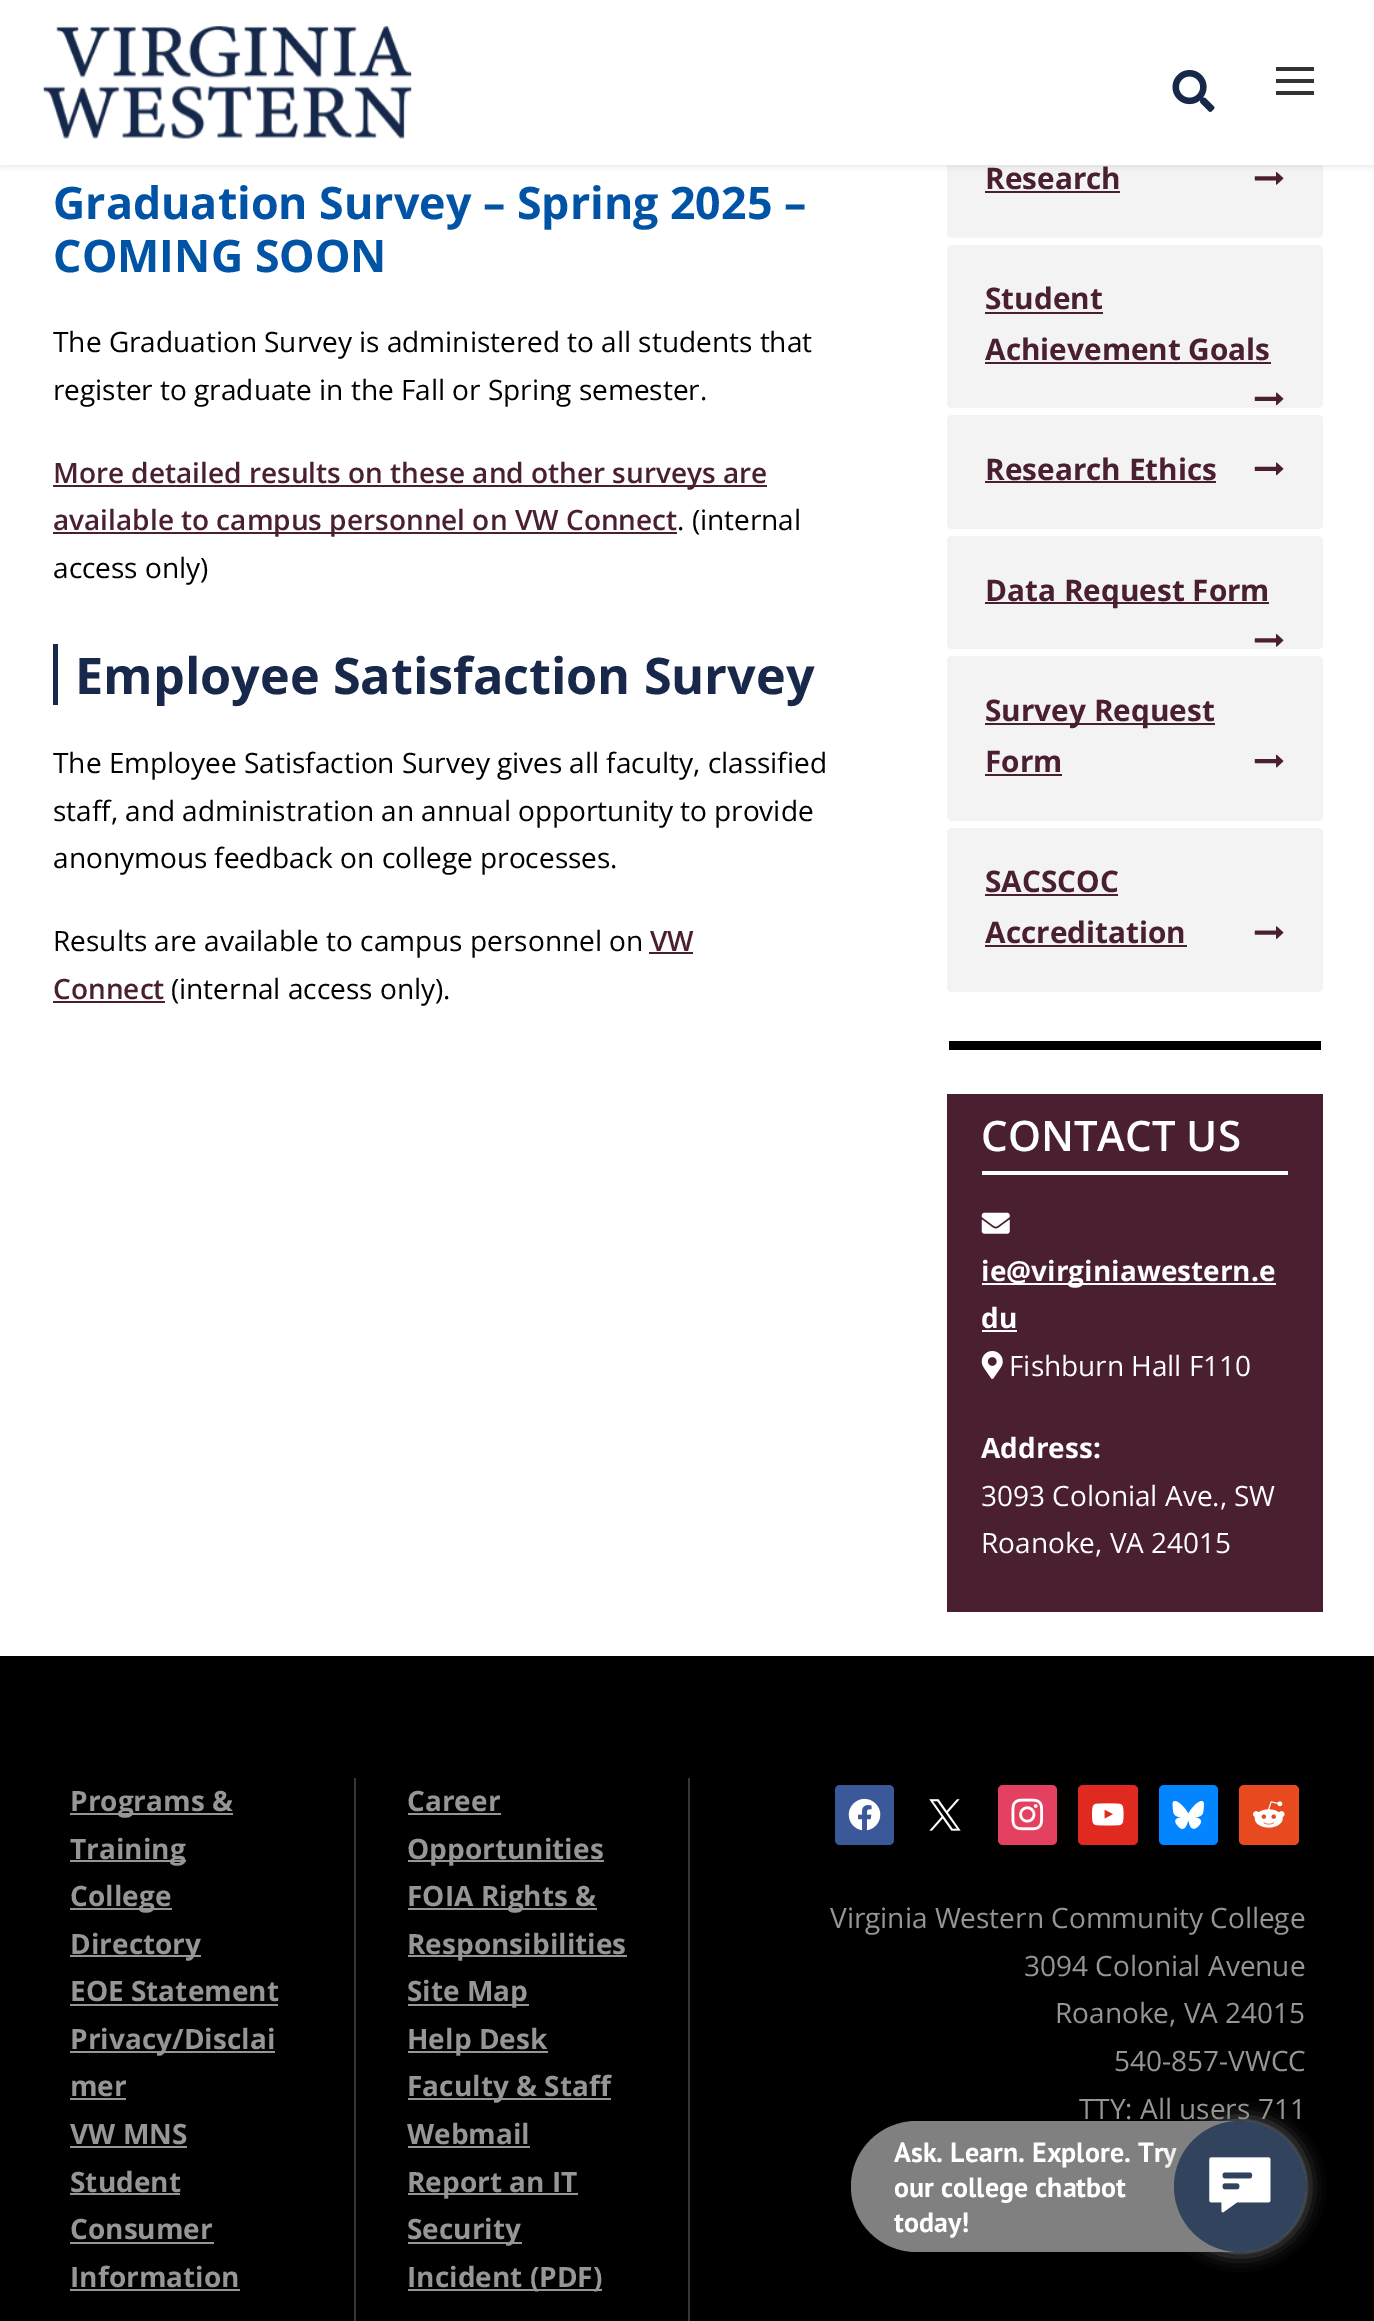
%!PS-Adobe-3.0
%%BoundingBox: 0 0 1374 2321
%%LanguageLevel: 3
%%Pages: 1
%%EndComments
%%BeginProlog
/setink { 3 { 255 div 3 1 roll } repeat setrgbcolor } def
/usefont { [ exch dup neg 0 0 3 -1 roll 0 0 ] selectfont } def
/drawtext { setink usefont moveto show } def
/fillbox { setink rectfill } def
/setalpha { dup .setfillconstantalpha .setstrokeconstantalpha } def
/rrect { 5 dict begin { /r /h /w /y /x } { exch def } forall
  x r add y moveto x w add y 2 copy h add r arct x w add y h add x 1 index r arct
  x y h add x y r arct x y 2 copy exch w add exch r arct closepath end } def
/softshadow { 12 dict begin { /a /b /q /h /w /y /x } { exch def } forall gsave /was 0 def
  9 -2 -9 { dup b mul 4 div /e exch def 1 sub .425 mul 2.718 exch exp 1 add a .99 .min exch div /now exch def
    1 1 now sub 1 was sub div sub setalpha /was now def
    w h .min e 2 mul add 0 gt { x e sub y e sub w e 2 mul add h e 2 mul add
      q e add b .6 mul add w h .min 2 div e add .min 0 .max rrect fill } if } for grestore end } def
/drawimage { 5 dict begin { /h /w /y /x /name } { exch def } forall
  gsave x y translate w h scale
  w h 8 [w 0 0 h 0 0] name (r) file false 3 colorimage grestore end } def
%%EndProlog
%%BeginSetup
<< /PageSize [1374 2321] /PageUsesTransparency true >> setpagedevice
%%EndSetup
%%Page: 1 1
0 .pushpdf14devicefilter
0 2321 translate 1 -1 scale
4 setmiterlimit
0 0 1374 2321 255 255 255 fillbox
243 243 243 setink
947 74 376 164 5 rrect fill
(assets/img3.rgb) 1254 172 30 13 drawimage
0 0 0 setink
0 2 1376 164 0 3.5 0.1 softshadow
0 0 1374 165 255 255 255 fillbox
(assets/img1.rgb) 43 26 369 113 drawimage
(assets/img2.rgb) 1172 70 43 42 drawimage
1276 67 38 4 51 51 51 fillbox
1276 79 38 4 51 51 51 fillbox
1276 91 38 4 51 51 51 fillbox
(Graduation Survey – Spring 2025 –) 53 219 /OpenSans-Bold 44.75 0 83 165 drawtext
(COMING SOON) 53 272 /OpenSans-Bold 44.75 0 83 165 drawtext
(The Graduation Survey is administered to all students that) 53 352 /OpenSans-Regular 28 0 0 0 drawtext
(register to graduate in the Fall or Spring semester.) 53 400 /OpenSans-Regular 28 0 0 0 drawtext
53 485 714 2 74 31 50 fillbox
(More detailed results on these and other surveys are) 53 483 /OpenSans-SemiBold 28 74 31 50 drawtext
53 532 624 2 74 31 50 fillbox
(available to campus personnel on VW Connect) 53 530 /OpenSans-SemiBold 28 74 31 50 drawtext
(. \(internal) 677 530 /OpenSans-Regular 28 0 0 0 drawtext
(access only\)) 53 578 /OpenSans-Regular 28 0 0 0 drawtext
53 644 5 61 24 40 74 fillbox
(Employee Satisfaction Survey) 75 694 /OpenSans-Bold 50.4 24 40 74 drawtext
(The Employee Satisfaction Survey gives all faculty, classified) 53 773 /OpenSans-Regular 28 0 0 0 drawtext
(staff, and administration an annual opportunity to provide) 53 821 /OpenSans-Regular 28 0 0 0 drawtext
(anonymous feedback on college processes.) 53 868 /OpenSans-Regular 28 0 0 0 drawtext
(Results are available to campus personnel on) 53 951 /OpenSans-Regular 28 0 0 0 drawtext
(VW) 650 951 /OpenSans-SemiBold 28 74 31 50 drawtext
649 952 44 2 74 31 50 fillbox
(Connect) 53 999 /OpenSans-SemiBold 28 74 31 50 drawtext
53 1001 112 2 74 31 50 fillbox
(\(internal access only\).) 171 999 /OpenSans-Regular 28 0 0 0 drawtext
(Research) 985 189 /OpenSans-Bold 29.75 74 31 50 drawtext
985 191 135 2 74 31 50 fillbox
243 243 243 setink
947 245 376 163 5 rrect fill
(Student) 985 309 /OpenSans-Bold 29.75 74 31 50 drawtext
985 312 118 2 74 31 50 fillbox
(Achievement Goals) 985 360 /OpenSans-Bold 29.75 74 31 50 drawtext
985 362 286 2 74 31 50 fillbox
(assets/img4.rgb) 1254 392 30 14 drawimage
243 243 243 setink
947 415 376 114 5 rrect fill
(Research Ethics) 985 480 /OpenSans-Bold 29.75 74 31 50 drawtext
985 481 231 2 74 31 50 fillbox
(assets/img4.rgb) 1254 462 30 14 drawimage
243 243 243 setink
947 536 376 113 5 rrect fill
985 602 284 2 74 31 50 fillbox
(Data Request Form) 985 601 /OpenSans-Bold 29.75 74 31 50 drawtext
(assets/img3.rgb) 1254 634 30 13 drawimage
243 243 243 setink
947 656 376 165 5 rrect fill
985 723 230 2 74 31 50 fillbox
(Survey Request) 985 721 /OpenSans-Bold 29.75 74 31 50 drawtext
(Form) 985 772 /OpenSans-Bold 29.75 74 31 50 drawtext
985 774 77 2 74 31 50 fillbox
(assets/img5.rgb) 1254 754 30 14 drawimage
243 243 243 setink
947 828 376 164 5 rrect fill
(SACSCOC) 985 892 /OpenSans-Bold 29.75 74 31 50 drawtext
985 894 133 2 74 31 50 fillbox
(Accreditation) 985 943 /OpenSans-Bold 29.75 74 31 50 drawtext
985 945 202 2 74 31 50 fillbox
(assets/img6.rgb) 1254 926 30 13 drawimage
949 1041 372 9 0 0 0 fillbox
947 1094 376 518 74 31 50 fillbox
982 1171 306 4 255 255 255 fillbox
(CONTACT US) 981 1151 /OpenSans-SemiBold 42 255 255 255 drawtext
(assets/img7.rgb) 981 1212 29 22 drawimage
982 1283 294 2 255 255 255 fillbox
(ie@virginiawestern.e) 981 1281 /OpenSans-Bold 28 255 255 255 drawtext
(du) 981 1328 /OpenSans-Bold 28 255 255 255 drawtext
982 1330 35 2 255 255 255 fillbox
(assets/img8.rgb) 981 1351 22 28 drawimage
(Fishburn Hall F110) 1009 1376 /OpenSans-Regular 28 255 255 255 drawtext
(Address:) 981 1458 /OpenSans-Bold 28 255 255 255 drawtext
(3093 Colonial Ave., SW) 981 1506 /OpenSans-Regular 28 255 255 255 drawtext
(Roanoke, VA 24015) 981 1553 /OpenSans-Regular 28 255 255 255 drawtext
0 1656 1374 665 0 0 0 fillbox
70 1813 163 2 150 150 150 fillbox
(Programs &) 70 1811 /OpenSans-Bold 28 150 150 150 drawtext
70 1860 116 2 150 150 150 fillbox
(Training) 70 1859 /OpenSans-Bold 28 150 150 150 drawtext
70 1908 102 2 150 150 150 fillbox
(College) 70 1906 /OpenSans-Bold 28 150 150 150 drawtext
70 1955 131 2 150 150 150 fillbox
(Directory) 70 1954 /OpenSans-Bold 28 150 150 150 drawtext
(EOE Statement) 70 2001 /OpenSans-Bold 28 150 150 150 drawtext
70 2004 208 2 150 150 150 fillbox
70 2051 205 2 150 150 150 fillbox
(Privacy/Disclai) 70 2049 /OpenSans-Bold 28 150 150 150 drawtext
(mer) 70 2096 /OpenSans-Bold 28 150 150 150 drawtext
70 2098 56 2 150 150 150 fillbox
(VW MNS) 70 2144 /OpenSans-Bold 28 150 150 150 drawtext
70 2146 117 2 150 150 150 fillbox
(Student) 70 2192 /OpenSans-Bold 28 150 150 150 drawtext
70 2193 110 2 150 150 150 fillbox
(Consumer) 70 2239 /OpenSans-Bold 28 150 150 150 drawtext
70 2242 144 2 150 150 150 fillbox
(Information) 70 2287 /OpenSans-Bold 28 150 150 150 drawtext
70 2289 170 2 150 150 150 fillbox
354 1778 2 543 54 54 54 fillbox
(Career) 407 1811 /OpenSans-Bold 28 150 150 150 drawtext
408 1813 93 2 150 150 150 fillbox
408 1860 196 2 150 150 150 fillbox
(Opportunities) 407 1859 /OpenSans-Bold 28 150 150 150 drawtext
408 1908 189 2 150 150 150 fillbox
(FOIA Rights &) 407 1906 /OpenSans-Bold 28 150 150 150 drawtext
408 1955 219 2 150 150 150 fillbox
(Responsibilities) 407 1954 /OpenSans-Bold 28 150 150 150 drawtext
408 2004 121 2 150 150 150 fillbox
(Site Map) 407 2001 /OpenSans-Bold 28 150 150 150 drawtext
408 2051 140 2 150 150 150 fillbox
(Help Desk) 407 2049 /OpenSans-Bold 28 150 150 150 drawtext
408 2098 203 2 150 150 150 fillbox
(Faculty & Staff) 407 2096 /OpenSans-Bold 28 150 150 150 drawtext
(Webmail) 407 2144 /OpenSans-Bold 28 150 150 150 drawtext
408 2146 122 2 150 150 150 fillbox
408 2193 170 2 150 150 150 fillbox
(Report an IT) 407 2192 /OpenSans-Bold 28 150 150 150 drawtext
408 2242 114 2 150 150 150 fillbox
(Security) 407 2239 /OpenSans-Bold 28 150 150 150 drawtext
408 2289 194 2 150 150 150 fillbox
(Incident \(PDF\)) 407 2287 /OpenSans-Bold 28 150 150 150 drawtext
688 1778 2 543 54 54 54 fillbox
59 89 152 setink
835 1785 59 60 5 rrect fill
(assets/img9.rgb) 848 1798 33 33 drawimage
(assets/img10.rgb) 929 1799 32 32 drawimage
228 64 95 setink
998 1785 59 60 5 rrect fill
(assets/img11.rgb) 1011 1798 33 33 drawimage
224 42 32 setink
1078 1785 60 60 5 rrect fill
(assets/img12.rgb) 1092 1803 32 23 drawimage
2 133 255 setink
1159 1785 59 60 5 rrect fill
(assets/img13.rgb) 1172 1801 32 28 drawimage
231 74 30 setink
1239 1785 60 60 5 rrect fill
(assets/img14.rgb) 1253 1801 32 27 drawimage
(Virginia Western Community College) 830 1928 /OpenSans-Regular 28 150 150 150 drawtext
(3094 Colonial Avenue) 1024 1976 /OpenSans-Regular 28 150 150 150 drawtext
(Roanoke, VA 24015) 1055 2023 /OpenSans-Regular 28 150 150 150 drawtext
(540-857-VWCC) 1114 2071 /OpenSans-Regular 28 150 150 150 drawtext
(TTY: All users 711) 1079 2119 /OpenSans-Regular 28 150 150 150 drawtext
128 128 128 setink
851 2121 455 131 65.5 rrect fill
(Ask. Learn. Explore. Try) 894 2162 /PTSans-Bold 28 255 255 255 drawtext
(our college chatbot) 894 2197 /PTSans-Bold 28 255 255 255 drawtext
(today!) 894 2232 /PTSans-Bold 28 255 255 255 drawtext
128 128 128 setink
1174 2121 132 131 65.5 9 1 softshadow
49 67 93 setink
1174 2121 132 131 65.5 rrect fill
(assets/img15.rgb) 1209 2157 62 56 drawimage
.poppdf14devicefilter showpage
%%EOF
